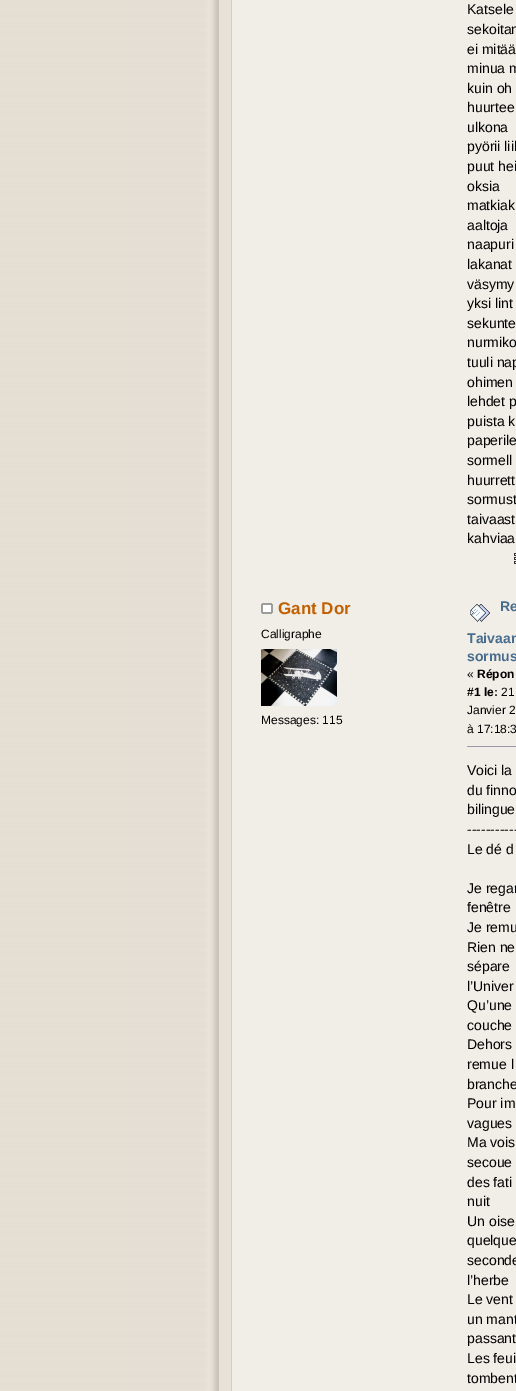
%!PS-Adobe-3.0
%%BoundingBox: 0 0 516 1391
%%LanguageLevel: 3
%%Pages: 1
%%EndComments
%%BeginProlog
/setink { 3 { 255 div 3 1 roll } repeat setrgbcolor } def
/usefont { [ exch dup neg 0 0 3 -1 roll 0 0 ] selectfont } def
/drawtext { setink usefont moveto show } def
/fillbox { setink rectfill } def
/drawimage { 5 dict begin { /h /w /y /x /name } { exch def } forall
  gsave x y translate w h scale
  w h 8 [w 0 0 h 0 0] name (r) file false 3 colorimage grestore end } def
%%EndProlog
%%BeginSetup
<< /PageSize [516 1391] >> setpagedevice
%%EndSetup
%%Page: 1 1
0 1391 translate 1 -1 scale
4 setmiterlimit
0 0 516 1391 241 238 231 fillbox
(assets/img1.rgb) 0 0 232 1391 drawimage
(Katsele) 467 14 /LiberationSans-Regular 14 0 0 0 drawtext
(sekoitan) 467 34 /LiberationSans-Regular 14 0 0 0 drawtext
(ei mitää) 467 54 /LiberationSans-Regular 14 0 0 0 drawtext
(minua m) 467 73 /LiberationSans-Regular 14 0 0 0 drawtext
(kuin oh) 467 93 /LiberationSans-Regular 14 0 0 0 drawtext
(huurtee) 467 112 /LiberationSans-Regular 14 0 0 0 drawtext
(ulkona) 467 132 /LiberationSans-Regular 14 0 0 0 drawtext
(pyörii liik) 467 151 /LiberationSans-Regular 14 0 0 0 drawtext
(puut hei) 467 171 /LiberationSans-Regular 14 0 0 0 drawtext
(oksia) 467 191 /LiberationSans-Regular 14 0 0 0 drawtext
(matkiak) 467 210 /LiberationSans-Regular 14 0 0 0 drawtext
(aaltoja) 467 230 /LiberationSans-Regular 14 0 0 0 drawtext
(naapuri) 467 249 /LiberationSans-Regular 14 0 0 0 drawtext
(lakanat) 467 269 /LiberationSans-Regular 14 0 0 0 drawtext
(väsymy) 467 289 /LiberationSans-Regular 14 0 0 0 drawtext
(yksi lint) 467 308 /LiberationSans-Regular 14 0 0 0 drawtext
(sekunte) 467 328 /LiberationSans-Regular 14 0 0 0 drawtext
(nurmiko) 467 347 /LiberationSans-Regular 14 0 0 0 drawtext
(tuuli nap) 467 367 /LiberationSans-Regular 14 0 0 0 drawtext
(ohimen) 467 387 /LiberationSans-Regular 14 0 0 0 drawtext
(lehdet p) 467 406 /LiberationSans-Regular 14 0 0 0 drawtext
(puista k) 467 426 /LiberationSans-Regular 14 0 0 0 drawtext
(paperile) 467 445 /LiberationSans-Regular 14 0 0 0 drawtext
(sormell) 467 465 /LiberationSans-Regular 14 0 0 0 drawtext
(huurrett) 467 485 /LiberationSans-Regular 14 0 0 0 drawtext
(sormust) 467 504 /LiberationSans-Regular 14 0 0 0 drawtext
(taivaast) 467 524 /LiberationSans-Regular 14 0 0 0 drawtext
(kahviaa) 467 543 /LiberationSans-Regular 14 0 0 0 drawtext
(assets/img2.rgb) 514 553 2 11 drawimage
(assets/img3.rgb) 261 603 12 11 drawimage
(Gant Dor) 278 614 /LiberationSans-Bold 17 192 96 2 drawtext
(Calligraphe) 261 638 /LiberationSans-Regular 12 0 0 0 drawtext
(assets/img4.rgb) 261 649 76 57 drawimage
(Messages: 115) 261 724 /LiberationSans-Regular 12 0 0 0 drawtext
(Re) 500 611 /LiberationSans-Bold 14 71 108 142 drawtext
(Taivaan) 467 643 /LiberationSans-Bold 14 71 108 142 drawtext
(sormus) 467 661 /LiberationSans-Bold 14 71 108 142 drawtext
(assets/img5.rgb) 470 604 20 18 drawimage
(«) 467 678 /LiberationSans-Regular 12 0 0 0 drawtext
(Répon) 477 678 /LiberationSans-Bold 12 0 0 0 drawtext
(#1 le:) 467 696 /LiberationSans-Bold 12 0 0 0 drawtext
(21) 501 696 /LiberationSans-Regular 12 0 0 0 drawtext
(Janvier 2) 467 714 /LiberationSans-Regular 12 0 0 0 drawtext
(à 17:18:3) 467 733 /LiberationSans-Regular 12 0 0 0 drawtext
467 746 49 1 153 153 170 fillbox
(Voici la) 467 775 /LiberationSans-Regular 14 0 0 0 drawtext
(du finno) 467 795 /LiberationSans-Regular 14 0 0 0 drawtext
(bilingue) 467 814 /LiberationSans-Regular 14 0 0 0 drawtext
(-----------) 467 834 /LiberationSans-Regular 14 0 0 0 drawtext
(Le dé d) 467 854 /LiberationSans-Regular 14 0 0 0 drawtext
(Je regar) 467 893 /LiberationSans-Regular 14 0 0 0 drawtext
(fenêtre) 467 912 /LiberationSans-Regular 14 0 0 0 drawtext
(Je remu) 467 932 /LiberationSans-Regular 14 0 0 0 drawtext
(Rien ne) 467 952 /LiberationSans-Regular 14 0 0 0 drawtext
(sépare) 467 971 /LiberationSans-Regular 14 0 0 0 drawtext
(l’Univer) 467 991 /LiberationSans-Regular 14 0 0 0 drawtext
(Qu’une) 467 1010 /LiberationSans-Regular 14 0 0 0 drawtext
(couche) 467 1030 /LiberationSans-Regular 14 0 0 0 drawtext
(Dehors) 467 1049 /LiberationSans-Regular 14 0 0 0 drawtext
(remue l) 467 1069 /LiberationSans-Regular 14 0 0 0 drawtext
(branche) 467 1089 /LiberationSans-Regular 14 0 0 0 drawtext
(Pour im) 467 1108 /LiberationSans-Regular 14 0 0 0 drawtext
(vagues) 467 1128 /LiberationSans-Regular 14 0 0 0 drawtext
(Ma vois) 467 1147 /LiberationSans-Regular 14 0 0 0 drawtext
(secoue) 467 1167 /LiberationSans-Regular 14 0 0 0 drawtext
(des fati) 467 1187 /LiberationSans-Regular 14 0 0 0 drawtext
(nuit) 467 1206 /LiberationSans-Regular 14 0 0 0 drawtext
(Un oise) 467 1226 /LiberationSans-Regular 14 0 0 0 drawtext
(quelque) 467 1245 /LiberationSans-Regular 14 0 0 0 drawtext
(seconde) 467 1265 /LiberationSans-Regular 14 0 0 0 drawtext
(l’herbe) 467 1285 /LiberationSans-Regular 14 0 0 0 drawtext
(Le vent) 467 1304 /LiberationSans-Regular 14 0 0 0 drawtext
(un mant) 467 1324 /LiberationSans-Regular 14 0 0 0 drawtext
(passant) 467 1343 /LiberationSans-Regular 14 0 0 0 drawtext
(Les feui) 467 1363 /LiberationSans-Regular 14 0 0 0 drawtext
(tombent) 467 1383 /LiberationSans-Regular 14 0 0 0 drawtext
showpage
%%EOF
